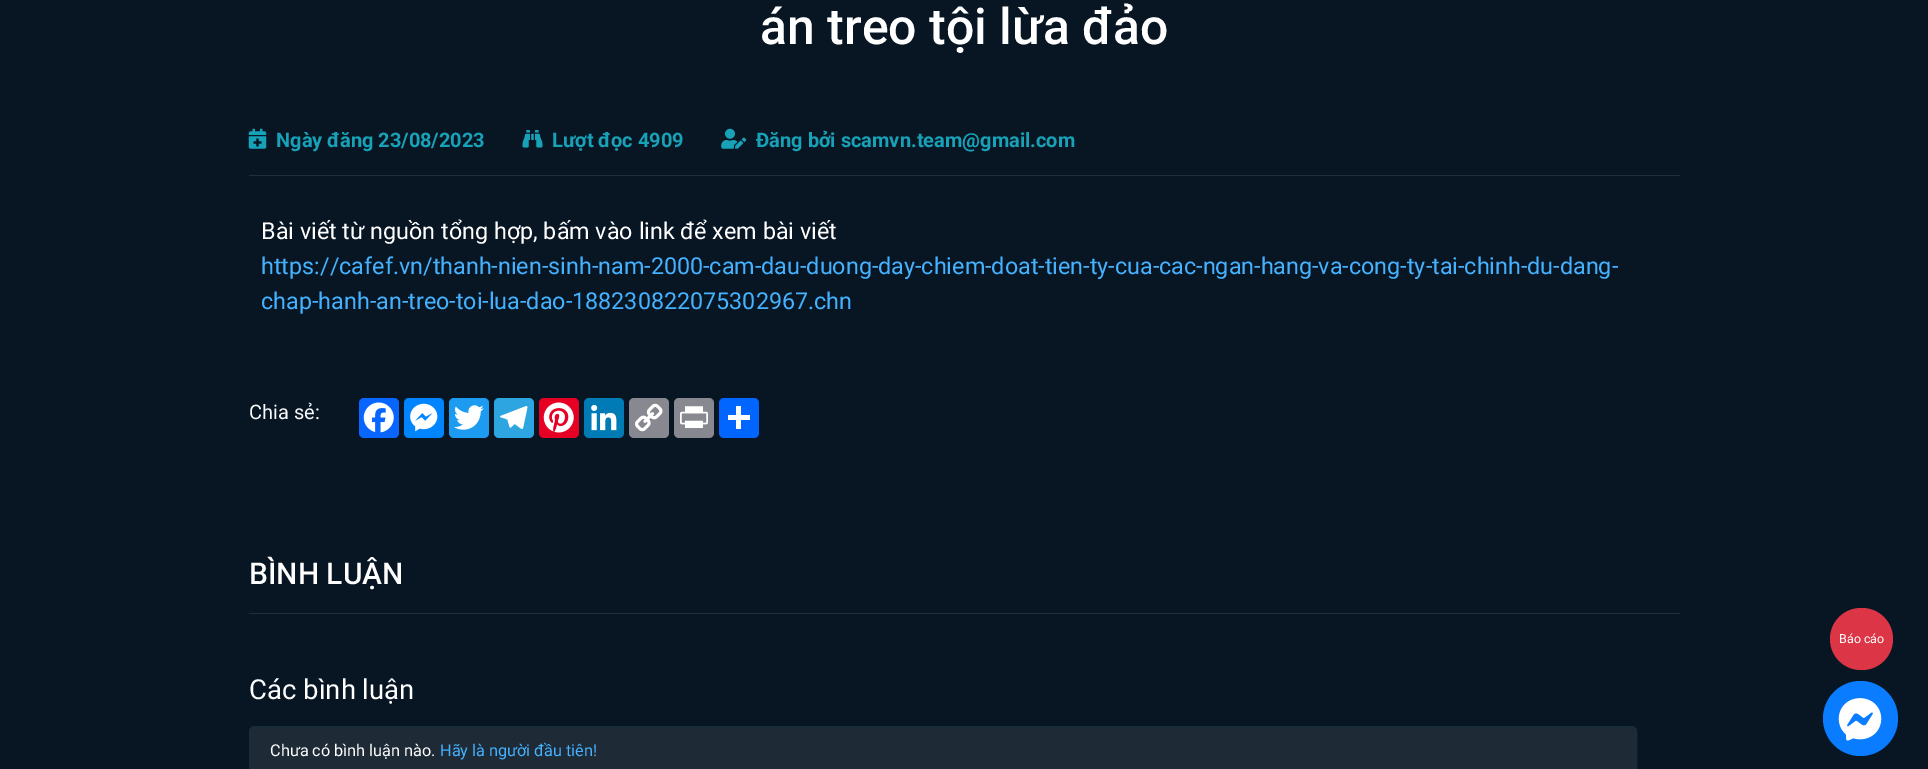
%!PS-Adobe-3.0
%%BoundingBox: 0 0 1928 769
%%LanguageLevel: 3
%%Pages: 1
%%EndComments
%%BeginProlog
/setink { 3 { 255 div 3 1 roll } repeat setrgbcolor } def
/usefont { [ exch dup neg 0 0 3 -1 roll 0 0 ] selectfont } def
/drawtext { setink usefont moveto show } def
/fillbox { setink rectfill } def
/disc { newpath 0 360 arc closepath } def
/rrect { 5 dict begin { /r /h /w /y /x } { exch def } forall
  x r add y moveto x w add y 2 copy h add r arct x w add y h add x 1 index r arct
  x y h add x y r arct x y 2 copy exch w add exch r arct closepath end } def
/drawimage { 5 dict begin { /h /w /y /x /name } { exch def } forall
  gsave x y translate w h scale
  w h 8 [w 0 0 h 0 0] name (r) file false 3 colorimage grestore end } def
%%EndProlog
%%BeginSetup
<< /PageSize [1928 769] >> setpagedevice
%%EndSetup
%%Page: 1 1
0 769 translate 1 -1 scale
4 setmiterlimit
0 0 1928 769 8 22 36 fillbox
(án treo tội lừa đảo) 760 44 /Roboto-Medium 50 255 255 255 drawtext
(assets/img1.rgb) 248 128 19 21 drawimage
(Ngày đăng 23/08/2023) 276 147 /Roboto-Bold 20 23 162 184 drawtext
(assets/img2.rgb) 522 130 21 18 drawimage
(Lượt đọc 4909) 552 147 /Roboto-Bold 20 23 162 184 drawtext
(assets/img3.rgb) 721 128 26 21 drawimage
(Đăng bởi scamvn.team@gmail.com) 756 147 /Roboto-Bold 20 23 162 184 drawtext
249 175 1431 1 33 45 58 fillbox
(Bài viết từ nguồn tổng hợp, bấm vào link để xem bài viết) 261 239 /Roboto-Regular 23.33 255 255 255 drawtext
(https://cafef.vn/thanh-nien-sinh-nam-2000-cam-dau-duong-day-chiem-doat-tien-ty-cua-cac-ngan-hang-va-cong-ty-tai-chinh-du-dang-) 261 274 /Roboto-Regular 23.33 69 178 255 drawtext
(chap-hanh-an-treo-toi-lua-dao-188230822075302967.chn) 261 309 /Roboto-Regular 23.33 69 178 255 drawtext
(Chia sẻ:) 249 419 /Roboto-Regular 20 248 249 250 drawtext
8 102 255 setink
359 398 40 40 5 rrect fill
(assets/img4.rgb) 363 402 31 31 drawimage
0 132 255 setink
404 398 40 40 5 rrect fill
(assets/img5.rgb) 410 403 28 29 drawimage
29 155 240 setink
449 398 40 40 5 rrect fill
(assets/img6.rgb) 454 405 30 25 drawimage
44 165 224 setink
494 398 40 40 5 rrect fill
(assets/img7.rgb) 500 406 28 23 drawimage
230 0 35 setink
539 398 40 40 5 rrect fill
(assets/img8.rgb) 543 402 31 31 drawimage
0 123 181 setink
584 398 40 40 5 rrect fill
(assets/img9.rgb) 591 404 26 27 drawimage
136 137 144 setink
629 398 40 40 5 rrect fill
(assets/img10.rgb) 635 403 28 29 drawimage
674 398 40 40 5 rrect fill
(assets/img11.rgb) 680 406 28 22 drawimage
1 102 255 setink
719 398 40 40 5 rrect fill
736 406 5 23 255 255 255 fillbox
728 415 22 5 255 255 255 fillbox
(BÌNH LUẬN) 249 584 /Roboto-Medium 30 255 255 255 drawtext
249 613 1431 1 33 45 58 fillbox
249 651 1431 1 7 20 32 fillbox
(Các bình luận) 249 699 /Roboto-Regular 27.5 255 255 255 drawtext
(assets/img12.rgb) 249 726 1389 43 drawimage
(Chưa có bình luận nào.) 270 756 /Roboto-Regular 16.25 255 255 255 drawtext
(Hãy là người đầu tiên!) 440 756 /Roboto-Regular 16.25 69 178 255 drawtext
220 53 69 setink
1830 608 63 62 31 rrect fill
(Báo cáo) 1839 643 /Roboto-Regular 12.5 255 255 255 drawtext
10 124 255 setink
1860.5 718.5 37.5 disc fill
(assets/img13.rgb) 1838 698 44 43 drawimage
showpage
%%EOF
